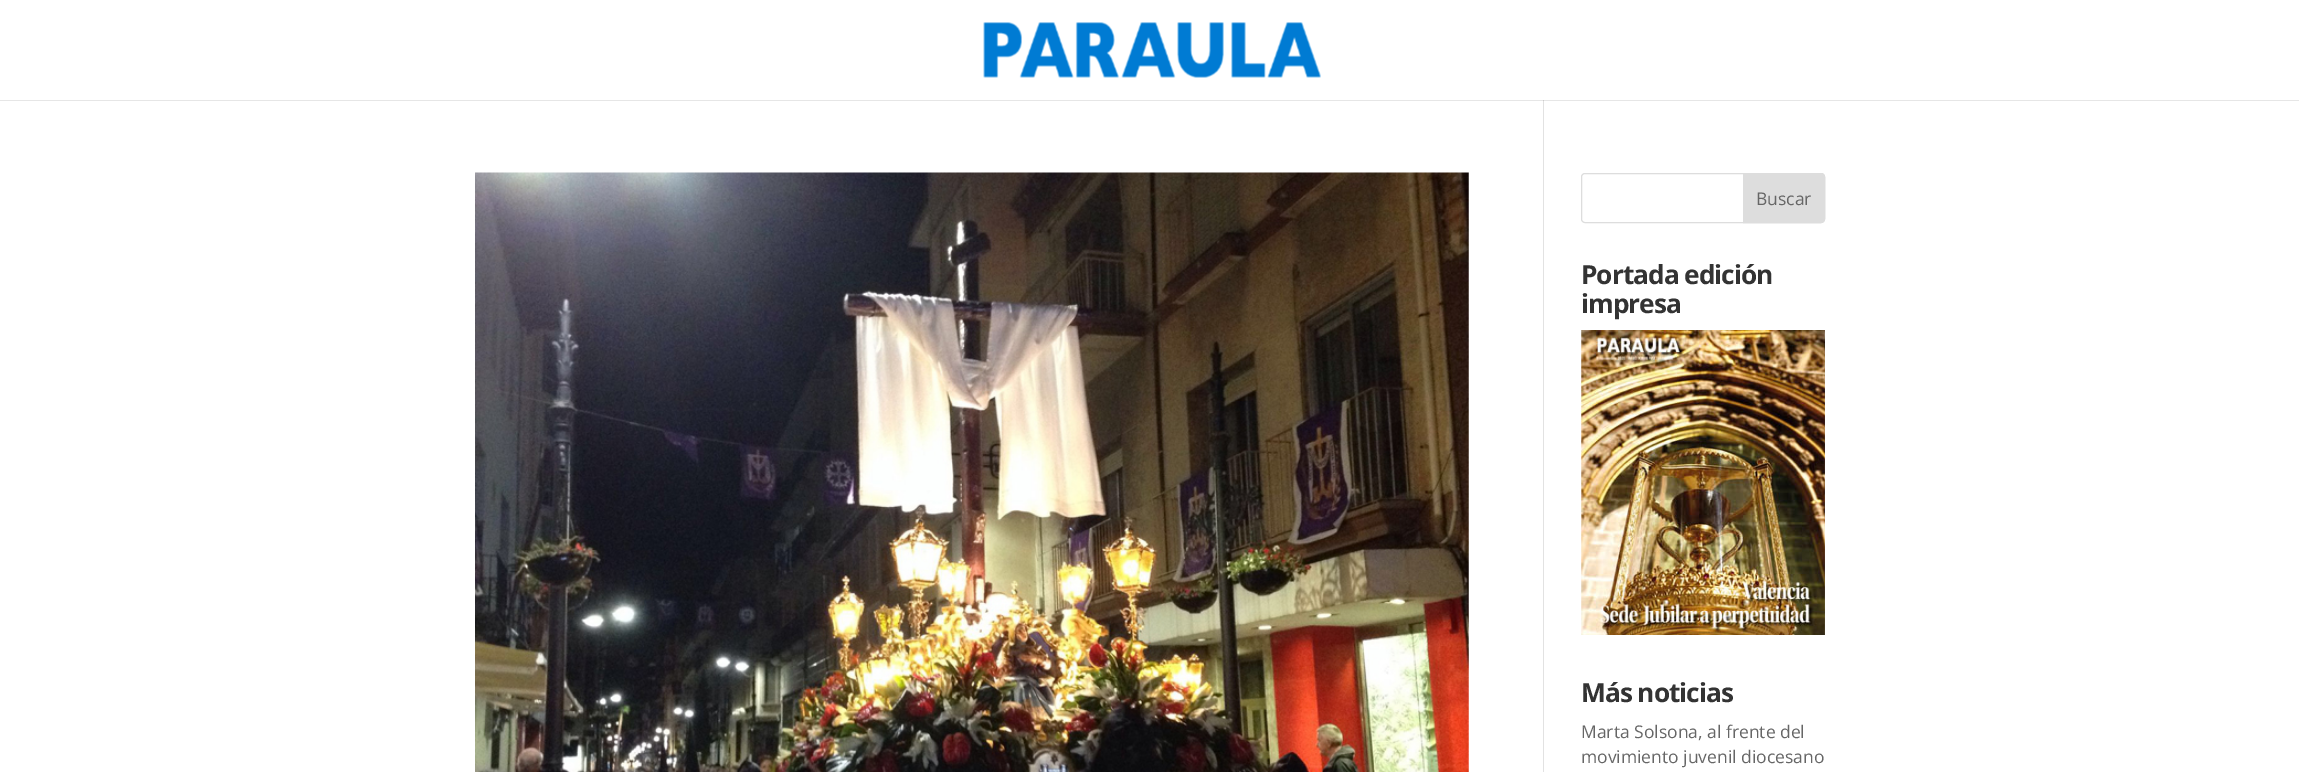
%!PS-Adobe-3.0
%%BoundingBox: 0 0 2299 772
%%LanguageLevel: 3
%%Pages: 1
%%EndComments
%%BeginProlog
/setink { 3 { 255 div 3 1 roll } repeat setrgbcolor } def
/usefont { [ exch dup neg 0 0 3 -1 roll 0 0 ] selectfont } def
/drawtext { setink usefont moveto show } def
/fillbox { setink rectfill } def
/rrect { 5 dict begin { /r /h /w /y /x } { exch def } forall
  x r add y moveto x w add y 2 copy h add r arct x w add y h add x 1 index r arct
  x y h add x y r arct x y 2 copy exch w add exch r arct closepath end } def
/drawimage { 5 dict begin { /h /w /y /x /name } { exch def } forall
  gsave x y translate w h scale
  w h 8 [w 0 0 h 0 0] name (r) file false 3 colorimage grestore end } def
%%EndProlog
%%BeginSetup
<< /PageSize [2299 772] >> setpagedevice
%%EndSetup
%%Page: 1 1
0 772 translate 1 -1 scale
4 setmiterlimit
0 0 2299 772 255 255 255 fillbox
0 100 2299 1 230 230 230 fillbox
(assets/img1.rgb) 983 22 338 56 drawimage
1543 100 1 672 226 226 226 fillbox
1543 100 1 1 203 203 203 fillbox
(assets/img2.rgb) 475 172 994 600 drawimage
221 221 221 setink
1581.5 173.5 243 49 3.5 rrect stroke
1743.5 173.5 moveto 1821 173.5 lineto 1823 173.5 1824.5 175 1824.5 177 curveto 1824.5 219 lineto 1824.5 221 1823 222.5 1821 222.5 curveto 1743.5 222.5 lineto closepath gsave fill grestore
stroke
(Buscar) 1756 205 /OpenSans-Regular 17.5 102 102 102 drawtext
/OpenSans-Bold 26.25 usefont
51 51 51 setink
1581 284 moveto -1 0 (Portada edición) ashow
1581 313 moveto -1 0 (impresa) ashow
(assets/img3.rgb) 1581 330 244 305 drawimage
1581 702 moveto -1 0 (Más noticias) ashow
(Marta Solsona, al frente del) 1581 738 /OpenSans-Regular 17.5 102 102 102 drawtext
(movimiento juvenil diocesano) 1581 763 /OpenSans-Regular 17.5 102 102 102 drawtext
showpage
%%EOF
